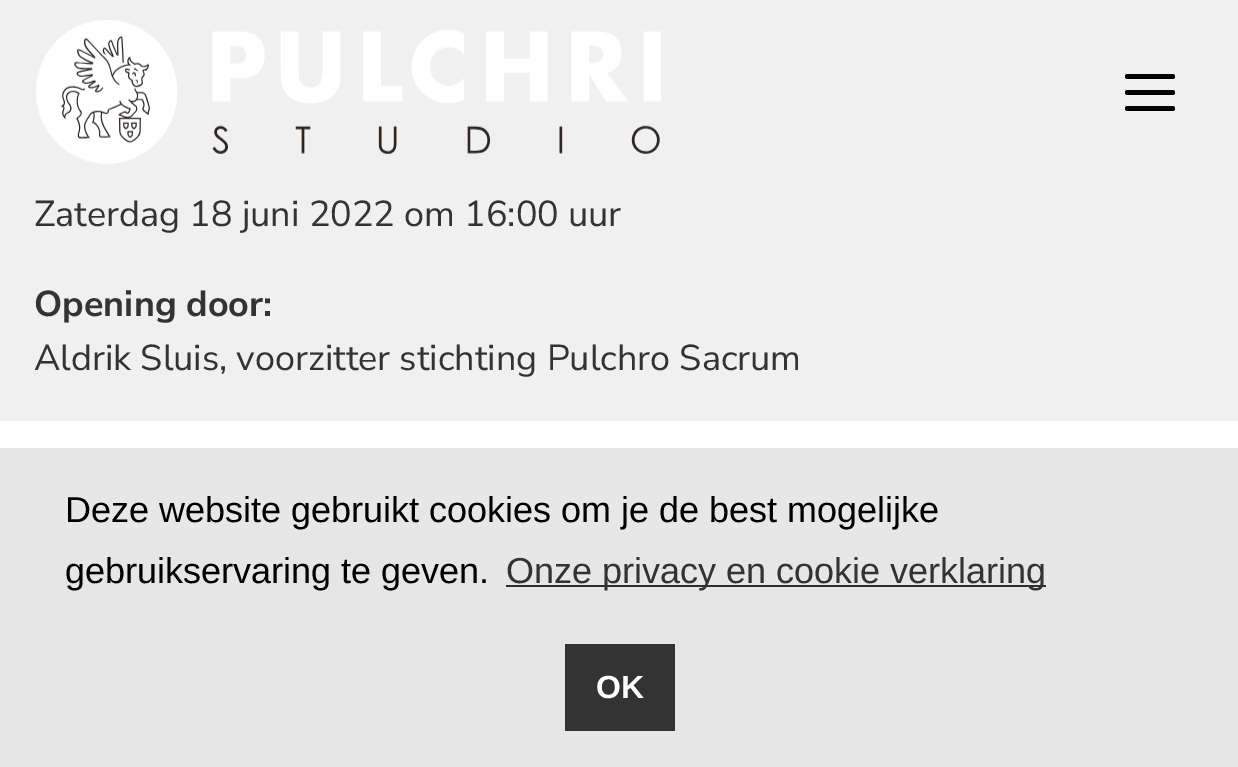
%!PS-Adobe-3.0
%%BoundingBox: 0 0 1238 767
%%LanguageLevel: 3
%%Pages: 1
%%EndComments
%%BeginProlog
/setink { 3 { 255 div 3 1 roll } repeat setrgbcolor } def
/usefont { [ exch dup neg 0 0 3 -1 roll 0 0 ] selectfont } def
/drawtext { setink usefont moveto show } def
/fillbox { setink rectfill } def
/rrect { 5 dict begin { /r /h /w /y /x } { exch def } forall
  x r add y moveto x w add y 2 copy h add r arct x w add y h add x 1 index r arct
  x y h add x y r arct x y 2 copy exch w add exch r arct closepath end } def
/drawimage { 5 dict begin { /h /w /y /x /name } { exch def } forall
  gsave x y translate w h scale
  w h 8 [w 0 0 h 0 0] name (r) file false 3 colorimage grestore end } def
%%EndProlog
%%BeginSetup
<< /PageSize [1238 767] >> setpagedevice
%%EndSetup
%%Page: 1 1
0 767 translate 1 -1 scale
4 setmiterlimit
0 0 1238 767 255 255 255 fillbox
0 448 1238 85 231 231 231 fillbox
0 0 1238 421 240 240 240 fillbox
(assets/img1.rgb) 36 20 625 144 drawimage
0 0 0 setink
1125 74 50 5 2.5 rrect fill
1125 90 50 5 2.5 rrect fill
1125 106 50 5 2.5 rrect fill
(Zaterdag 18 juni 2022 om 16:00 uur) 34 226 /NunitoSans-Regular 36 51 51 51 drawtext
(Opening door:) 34 316 /NunitoSans-Bold 36 51 51 51 drawtext
(Aldrik Sluis, voorzitter stichting Pulchro Sacrum) 34 370 /NunitoSans-Regular 36 51 51 51 drawtext
(Deze website gebruikt cookies om je de best mogelijke) 65 522 /LiberationSans-Regular 36 0 0 0 drawtext
0 533 1238 234 230 230 230 fillbox
(gebruikservaring te geven.) 65 583 /LiberationSans-Regular 36 0 0 0 drawtext
506 585 540 2 46 46 46 fillbox
(Onze privacy en cookie verklaring) 506 583 /LiberationSans-Regular 36 51 51 51 drawtext
565 644 110 87 51 51 51 fillbox
(OK) 596 698 /LiberationSans-Bold 32 255 255 255 drawtext
showpage
%%EOF
